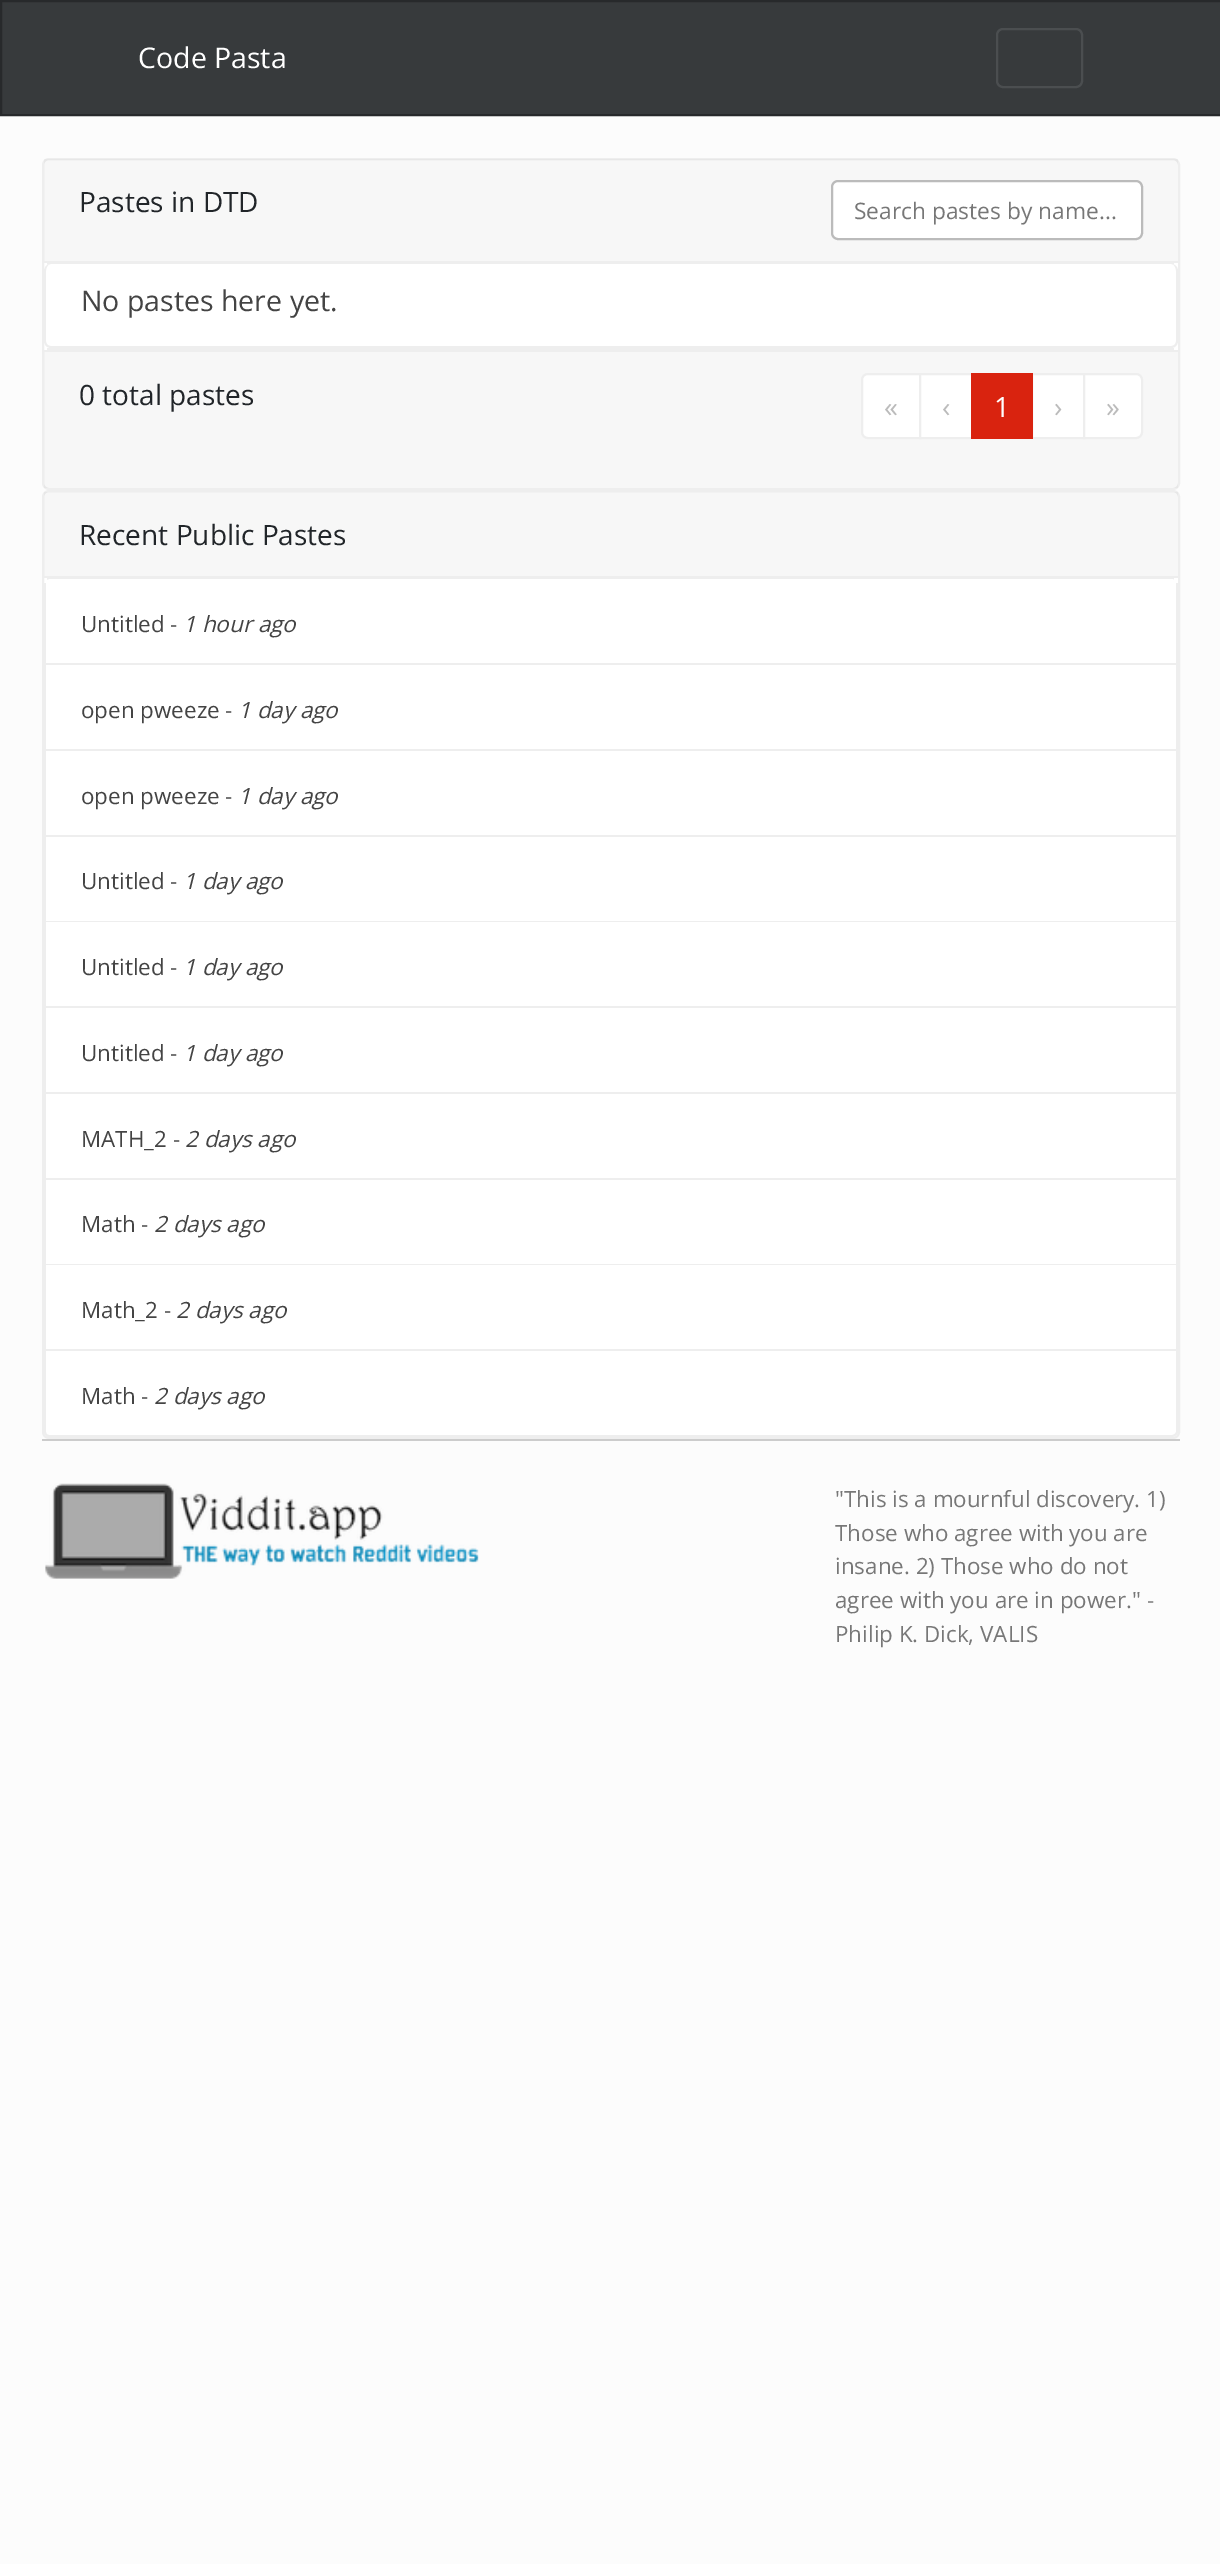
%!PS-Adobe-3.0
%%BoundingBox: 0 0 1220 2564
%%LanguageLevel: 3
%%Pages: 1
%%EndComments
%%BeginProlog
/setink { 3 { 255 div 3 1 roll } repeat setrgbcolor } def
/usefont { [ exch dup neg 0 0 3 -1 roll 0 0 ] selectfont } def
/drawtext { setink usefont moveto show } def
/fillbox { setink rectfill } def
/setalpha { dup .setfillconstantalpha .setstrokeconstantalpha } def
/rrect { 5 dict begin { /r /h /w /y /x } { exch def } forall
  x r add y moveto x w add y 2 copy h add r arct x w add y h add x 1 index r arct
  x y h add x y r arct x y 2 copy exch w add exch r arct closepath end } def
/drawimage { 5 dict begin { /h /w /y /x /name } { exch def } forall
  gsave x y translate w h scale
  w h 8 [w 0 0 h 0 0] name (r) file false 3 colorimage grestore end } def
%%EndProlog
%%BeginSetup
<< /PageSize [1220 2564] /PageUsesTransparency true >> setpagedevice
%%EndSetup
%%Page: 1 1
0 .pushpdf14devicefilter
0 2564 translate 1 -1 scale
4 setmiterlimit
0 0 1220 2564 252 252 252 fillbox
55 58 60 setink
1 1 moveto 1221 1 lineto 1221 115 lineto 1 115 lineto closepath gsave fill grestore
39 41 43 setink
2 setlinewidth
stroke
(Code Pasta) 138 68 /OpenSans-Regular 28.5 255 255 255 drawtext
75 78 80 setink
997 29 85 58 6 rrect stroke
255 255 255 setink
43 159 1136 330 6 rrect gsave fill grestore
238 238 238 setink
stroke
0.03 setalpha
44 159 1134 102 0 0 0 fillbox
1 setalpha
44 261 1134 2 238 238 238 fillbox
(Pastes in DTD) 79 212 /OpenSans-Regular 28 33 37 41 drawtext
255 255 255 setink
832 181 310 58 6 rrect gsave fill grestore
187 187 187 setink
stroke
(Search pastes by name...) 854 219 /OpenSans-Regular 22.75 119 119 119 drawtext
47 263 1127 2 238 238 238 fillbox
47 348 1127 2 238 238 238 fillbox
255 255 255 setink
44 264 1134 84 7 rrect fill
238 238 238 setink
51 264 moveto 1171 264 lineto 1175 264 1178 267 1178 271 curveto 1178 341 lineto 1178 345 1175 348 1171 348 curveto 51 348 lineto 47 348 44 345 44 341 curveto 44 271 lineto 44 267 47 264 51 264 curveto closepath 51 264 moveto 1171 264 lineto 1174 264 1176 267 1176 271 curveto 1176 341 lineto 1176 344 1174 346 1171 346 curveto 51 346 lineto 48 346 46 344 46 341 curveto 46 271 lineto 46 267 48 264 51 264 curveto closepath eofill
(No pastes here yet.) 81 311 /OpenSans-Regular 28.5 68 68 68 drawtext
0.03 setalpha
44 352 1134 136 0 0 0 fillbox
1 setalpha
44 350 1134 2 238 238 238 fillbox
(0 total pastes) 79 405 /OpenSans-Regular 28 33 37 41 drawtext
255 255 255 setink
868 374 moveto 920 374 lineto 920 438 lineto 868 438 lineto 864.5 438 862 435.5 862 432 curveto 862 380 lineto 862 376.5 864.5 374 868 374 curveto closepath gsave fill grestore
238 238 238 setink
stroke
(«) 884 417 /OpenSans-Regular 28 187 187 187 drawtext
255 255 255 setink
920 374 moveto 972 374 lineto 972 438 lineto 920 438 lineto closepath gsave fill grestore
238 238 238 setink
stroke
(‹) 942 417 /OpenSans-Regular 28 187 187 187 drawtext
255 255 255 setink
1032 374 moveto 1084 374 lineto 1084 438 lineto 1032 438 lineto closepath gsave fill grestore
238 238 238 setink
stroke
971 373 62 66 217 35 15 fillbox
(1) 994 417 /OpenSans-Regular 28 255 255 255 drawtext
(›) 1054 417 /OpenSans-Regular 28 187 187 187 drawtext
255 255 255 setink
1084 374 moveto 1136 374 lineto 1139.5 374 1142 376.5 1142 380 curveto 1142 432 lineto 1142 435.5 1139.5 438 1136 438 curveto 1084 438 lineto closepath gsave fill grestore
238 238 238 setink
stroke
(») 1106 417 /OpenSans-Regular 28 187 187 187 drawtext
255 255 255 setink
43 491 1136 947 6 rrect gsave fill grestore
238 238 238 setink
stroke
0.03 setalpha
44 492 1134 84 0 0 0 fillbox
1 setalpha
44 576 1134 2 238 238 238 fillbox
(Recent Public Pastes) 79 545 /OpenSans-Regular 28 33 37 41 drawtext
47 578 1127 2 238 238 238 fillbox
255 255 255 setink
51 579 moveto 1171 579 lineto 1175 579 1178 582 1178 586 curveto 1178 665 lineto 44 665 lineto 44 586 lineto 44 582 47 579 51 579 curveto closepath fill
1176 583 2 768 238 238 238 fillbox
44 663 1134 2 238 238 238 fillbox
44 583 2 82 238 238 238 fillbox
(Untitled -) 81 632 /OpenSans-Regular 22.4 68 68 68 drawtext
(1 hour ago) 183 632 /OpenSans-Italic 22.4 68 68 68 drawtext
44 749 1134 2 238 238 238 fillbox
44 665 2 86 238 238 238 fillbox
(open pweeze -) 81 718 /OpenSans-Regular 22.4 68 68 68 drawtext
(1 day ago) 238 718 /OpenSans-Italic 22.4 68 68 68 drawtext
44 835 1134 2 238 238 238 fillbox
44 751 2 86 238 238 238 fillbox
(open pweeze -) 81 804 /OpenSans-Regular 22.4 68 68 68 drawtext
(1 day ago) 238 804 /OpenSans-Italic 22.4 68 68 68 drawtext
44 921 1134 1 238 238 238 fillbox
44 837 2 85 238 238 238 fillbox
(Untitled -) 81 889 /OpenSans-Regular 22.4 68 68 68 drawtext
(1 day ago) 183 889 /OpenSans-Italic 22.4 68 68 68 drawtext
44 1006 1134 2 238 238 238 fillbox
44 922 2 86 238 238 238 fillbox
(Untitled -) 81 975 /OpenSans-Regular 22.4 68 68 68 drawtext
(1 day ago) 183 975 /OpenSans-Italic 22.4 68 68 68 drawtext
44 1092 1134 2 238 238 238 fillbox
44 1008 2 86 238 238 238 fillbox
(Untitled -) 81 1061 /OpenSans-Regular 22.4 68 68 68 drawtext
(1 day ago) 183 1061 /OpenSans-Italic 22.4 68 68 68 drawtext
44 1178 1134 2 238 238 238 fillbox
44 1094 2 86 238 238 238 fillbox
(MATH_2 -) 81 1147 /OpenSans-Regular 22.4 68 68 68 drawtext
(2 days ago) 185 1147 /OpenSans-Italic 22.4 68 68 68 drawtext
44 1264 1134 1 238 238 238 fillbox
44 1180 2 85 238 238 238 fillbox
(Math -) 81 1232 /OpenSans-Regular 22.4 68 68 68 drawtext
(2 days ago) 154 1232 /OpenSans-Italic 22.4 68 68 68 drawtext
44 1349 1134 2 238 238 238 fillbox
44 1265 2 86 238 238 238 fillbox
(Math_2 -) 81 1318 /OpenSans-Regular 22.4 68 68 68 drawtext
(2 days ago) 176 1318 /OpenSans-Italic 22.4 68 68 68 drawtext
238 238 238 setink
44 1351 moveto 1178 1351 lineto 1178 1432 lineto 1178 1434 1175 1437 1172 1437 curveto 49 1437 lineto 46 1437 44 1434 44 1432 curveto closepath 46 1351 moveto 1176 1351 lineto 1176 1432 lineto 1176 1433 1174 1435 1172 1435 curveto 49 1435 lineto 47 1435 46 1433 46 1432 curveto closepath eofill
(Math -) 81 1404 /OpenSans-Regular 22.4 68 68 68 drawtext
(2 days ago) 154 1404 /OpenSans-Italic 22.4 68 68 68 drawtext
42 1439 1138 2 204 204 204 fillbox
(assets/img1.rgb) 45 1483 434 96 drawimage
("This is a mournful discovery. 1\)) 835 1507 /OpenSans-Regular 22.4 119 119 119 drawtext
(Those who agree with you are) 835 1541 /OpenSans-Regular 22.4 119 119 119 drawtext
(insane. 2\) Those who do not) 835 1574 /OpenSans-Regular 22.4 119 119 119 drawtext
(agree with you are in power." -) 835 1608 /OpenSans-Regular 22.4 119 119 119 drawtext
(Philip K. Dick, VALIS) 835 1642 /OpenSans-Regular 22.4 119 119 119 drawtext
.poppdf14devicefilter showpage
%%EOF
